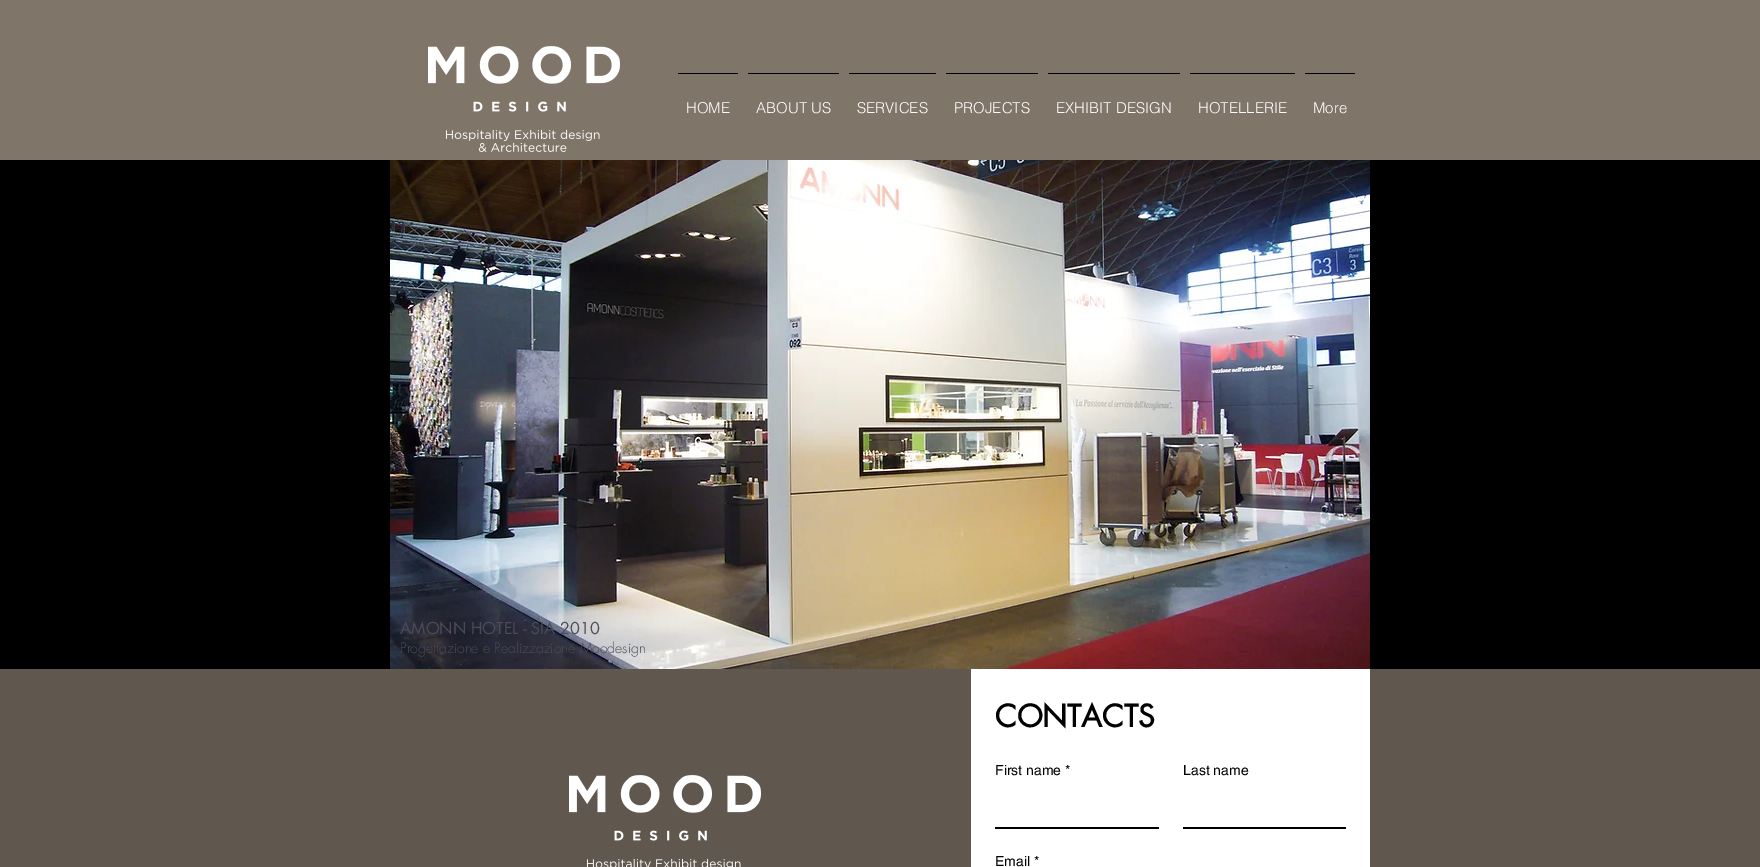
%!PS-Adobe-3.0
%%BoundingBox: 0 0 1760 867
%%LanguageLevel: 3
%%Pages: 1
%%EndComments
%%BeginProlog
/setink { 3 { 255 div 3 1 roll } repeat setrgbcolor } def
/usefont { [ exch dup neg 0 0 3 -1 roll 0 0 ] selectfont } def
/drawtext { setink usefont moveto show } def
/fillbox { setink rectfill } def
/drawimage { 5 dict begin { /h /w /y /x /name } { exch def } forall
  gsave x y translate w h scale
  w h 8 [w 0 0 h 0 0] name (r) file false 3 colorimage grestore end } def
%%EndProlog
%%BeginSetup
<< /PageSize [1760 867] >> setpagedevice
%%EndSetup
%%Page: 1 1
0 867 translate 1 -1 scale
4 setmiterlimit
0 0 1760 867 0 0 0 fillbox
0 0 1760 160 128 117 105 fillbox
(assets/img1.rgb) 428 46 192 106 drawimage
678 73 60 1 0 0 0 fillbox
(HOME) 686 113 /helvetica-Light 15 255 255 255 drawtext
748 73 91 1 0 0 0 fillbox
(ABOUT US) 756 113 /helvetica-Light 15 255 255 255 drawtext
849 73 87 1 0 0 0 fillbox
(SERVICES) 857 113 /helvetica-Light 15 255 255 255 drawtext
946 73 92 1 0 0 0 fillbox
(PROJECTS) 954 113 /helvetica-Light 15 255 255 255 drawtext
1048 73 132 1 0 0 0 fillbox
(EXHIBIT DESIGN) 1056 113 /helvetica-Light 15 255 255 255 drawtext
1190 73 105 1 0 0 0 fillbox
(HOTELLERIE) 1198 113 /helvetica-Light 15 255 255 255 drawtext
1305 73 50 1 0 0 0 fillbox
(More) 1313 113 /helvetica-Light 15 255 255 255 drawtext
(assets/img2.rgb) 390 160 980 509 drawimage
(AMONN HOTEL - SIA 2010) 400 634 /futura-Regular 16 74 76 88 drawtext
(Progettazione e Realizzazione Moodesign) 400 653 /futura-Light 14 74 76 88 drawtext
0 669 1760 198 96 88 79 fillbox
(assets/img3.rgb) 569 775 192 92 drawimage
971 669 399 198 255 255 255 fillbox
(CONTACTS) 995 727 /futura-Bold 30 0 0 0 drawtext
(First name *) 995 775 /helvetica-Regular 14 0 0 0 drawtext
(Last name) 1183 775 /helvetica-Regular 14 0 0 0 drawtext
995 827 164 2 0 0 0 fillbox
1183 827 163 2 0 0 0 fillbox
(Email *) 995 866 /helvetica-Regular 14 0 0 0 drawtext
showpage
%%EOF
